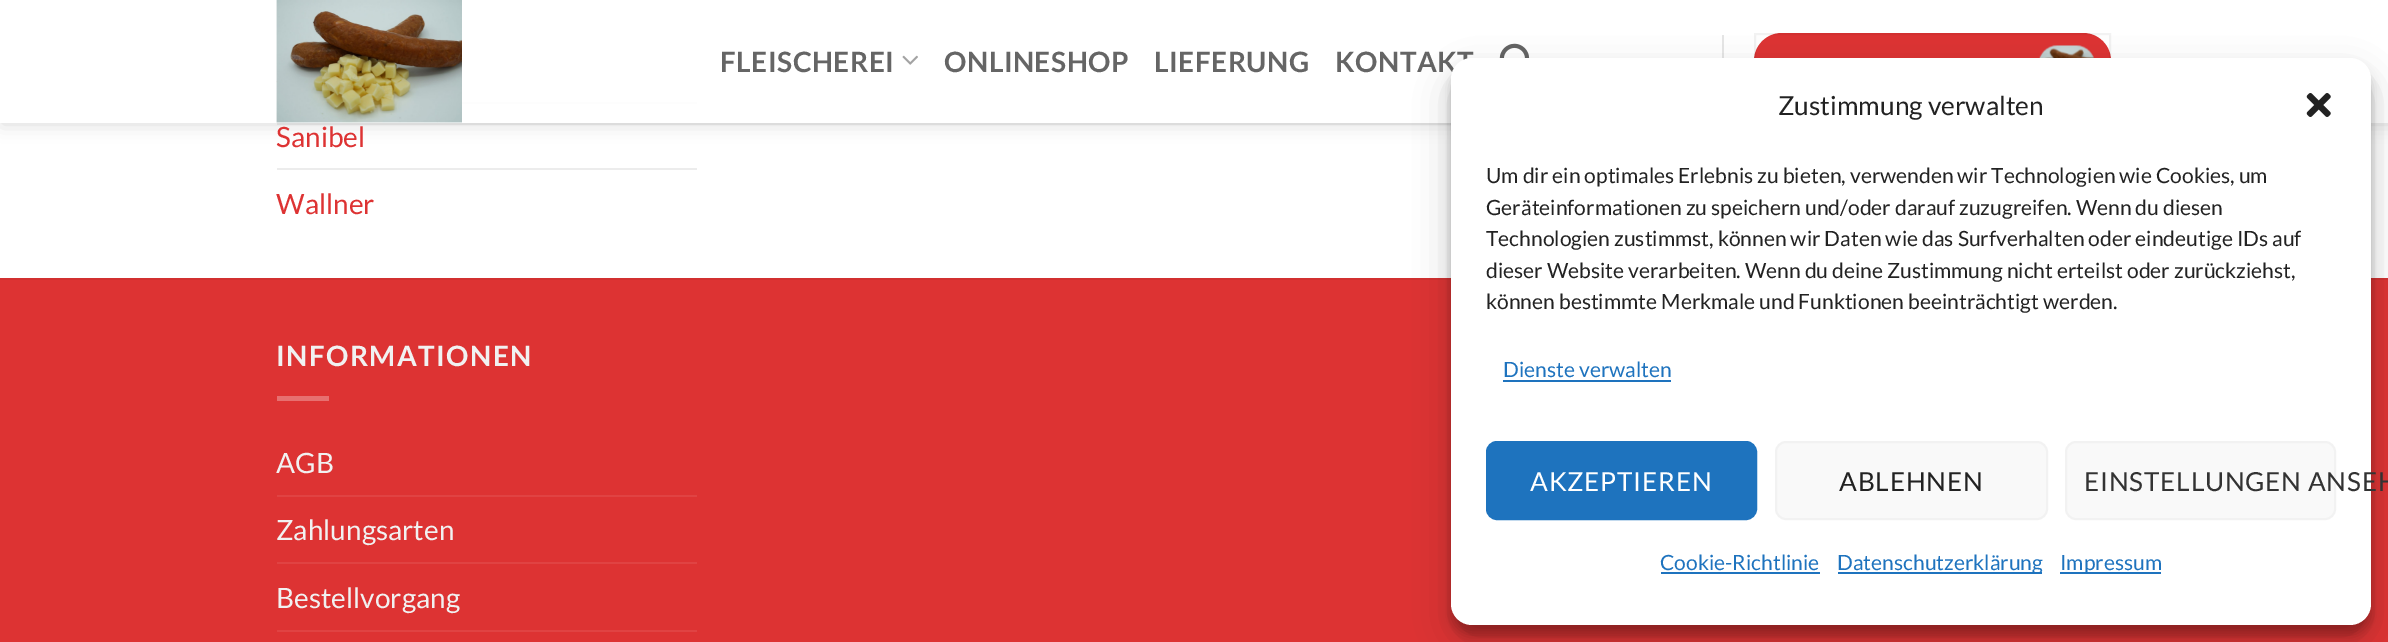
%!PS-Adobe-3.0
%%BoundingBox: 0 0 2388 642
%%LanguageLevel: 3
%%Pages: 1
%%EndComments
%%BeginProlog
/setink { 3 { 255 div 3 1 roll } repeat setrgbcolor } def
/usefont { [ exch dup neg 0 0 3 -1 roll 0 0 ] selectfont } def
/drawtext { setink usefont moveto show } def
/fillbox { setink rectfill } def
/setalpha { dup .setfillconstantalpha .setstrokeconstantalpha } def
/rrect { 5 dict begin { /r /h /w /y /x } { exch def } forall
  x r add y moveto x w add y 2 copy h add r arct x w add y h add x 1 index r arct
  x y h add x y r arct x y 2 copy exch w add exch r arct closepath end } def
/softshadow { 12 dict begin { /a /b /q /h /w /y /x } { exch def } forall gsave /was 0 def
  9 -2 -9 { dup b mul 4 div /e exch def 1 sub .425 mul 2.718 exch exp 1 add a .99 .min exch div /now exch def
    1 1 now sub 1 was sub div sub setalpha /was now def
    w h .min e 2 mul add 0 gt { x e sub y e sub w e 2 mul add h e 2 mul add
      q e add b .6 mul add w h .min 2 div e add .min 0 .max rrect fill } if } for grestore end } def
/drawimage { 5 dict begin { /h /w /y /x /name } { exch def } forall
  gsave x y translate w h scale
  w h 8 [w 0 0 h 0 0] name (r) file false 3 colorimage grestore end } def
%%EndProlog
%%BeginSetup
<< /PageSize [2388 642] /PageUsesTransparency true >> setpagedevice
%%EndSetup
%%Page: 1 1
0 .pushpdf14devicefilter
0 642 translate 1 -1 scale
4 setmiterlimit
0 0 2388 642 255 255 255 fillbox
462 102 235 2 236 236 236 fillbox
gsave
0 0 moveto 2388 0 lineto 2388 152 lineto 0 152 lineto closepath 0 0 moveto 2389 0 lineto 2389 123 lineto 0 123 lineto closepath eoclip newpath
0 0 0 setink
2 2 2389 122 0 9 0.15 softshadow
grestore
0.9 setalpha
0 102 2388 21 255 255 255 fillbox
1 setalpha
(assets/img1.rgb) 276 0 186 123 drawimage
/Lato-Bold 28 usefont
101 101 101 setink
720 72 moveto 0.5 0 (FLEISCHEREI) ashow
(assets/img2.rgb) 902 55 16 10 drawimage
944 72 moveto 0.5 0 (ONLINESHOP) ashow
1154 72 moveto 0.5 0 (LIEFERUNG) ashow
1335 72 moveto 0.5 0 (KONTAKT) ashow
(assets/img3.rgb) 1499 43 31 15 drawimage
1722 35 2 23 230 230 230 fillbox
221 51 51 setink
1754 33 357 56 28 rrect fill
0.05 setalpha
0 0 0 setink
2 setlinewidth
1755 34 355 54 rectstroke
1 setalpha
(assets/img4.rgb) 2039 45 55 13 drawimage
277 123 1174 2 220 220 220 fillbox
(Sanibel) 276 147 /Lato-Regular 28 221 51 51 drawtext
277 168 420 2 236 236 236 fillbox
(Wallner) 276 214 /Lato-Regular 28 221 51 51 drawtext
0 280 2388 362 221 51 51 fillbox
0 278 2388 2 210 48 48 fillbox
/Lato-Bold 28 usefont
241 241 241 setink
276 366 moveto 1.4 0 (INFORMATIONEN) ashow
277 396 52 5 231 112 112 fillbox
(AGB) 276 473 /Lato-Regular 28 241 241 241 drawtext
277 495 420 2 224 67 67 fillbox
(Zahlungsarten) 276 540 /Lato-Regular 28 241 241 241 drawtext
277 562 420 2 224 67 67 fillbox
(Bestellvorgang) 276 608 /Lato-Regular 28 241 241 241 drawtext
277 630 420 2 224 67 67 fillbox
0 0 0 setink
1451 68 920 567 21 5 0.23 softshadow
1451 75 920 567 21 17.5 0.19 softshadow
255 255 255 setink
1451 58 920 567 21 rrect fill
(Zustimmung verwalten) 1778 115 /Lato-Regular 26.25 34 34 34 drawtext
(assets/img5.rgb) 2306 93 25 24 drawimage
(Um dir ein optimales Erlebnis zu bieten, verwenden wir Technologien wie Cookies, um) 1486 183 /Lato-Regular 21 34 34 34 drawtext
(Geräteinformationen zu speichern und/oder darauf zuzugreifen. Wenn du diesen) 1486 215 /Lato-Regular 21 34 34 34 drawtext
(Technologien zustimmst, können wir Daten wie das Surfverhalten oder eindeutige IDs auf) 1486 246 /Lato-Regular 21 34 34 34 drawtext
(dieser Website verarbeiten. Wenn du deine Zustimmung nicht erteilst oder zurückziehst,) 1486 278 /Lato-Regular 21 34 34 34 drawtext
(können bestimmte Merkmale und Funktionen beeinträchtigt werden.) 1486 309 /Lato-Regular 21 34 34 34 drawtext
(Dienste verwalten) 1503 377 /Lato-Regular 21 30 115 190 drawtext
1503 380 168 2 30 115 190 fillbox
1487 442 269 77 10 rrect gsave fill grestore
stroke
/Lato-Regular 26.25 usefont
255 255 255 setink
1530 491 moveto 0.75 0 (AKZEPTIEREN) ashow
249 249 249 setink
1776 442 271 77 10 rrect gsave fill grestore
242 242 242 setink
stroke
34 34 34 setink
1839 491 moveto 0.75 0 (ABLEHNEN) ashow
249 249 249 setink
2066 442 269 77 10 rrect gsave fill grestore
242 242 242 setink
stroke
51 51 51 setink
2084 491 moveto 0.75 0 (EINSTELLUNGEN ANSEH) ashow
(Cookie-Richtlinie) 1660 570 /Lato-Regular 21 30 115 190 drawtext
1661 572 159 2 30 115 190 fillbox
1838 572 204 2 30 115 190 fillbox
(Datenschutzerklärung) 1837 570 /Lato-Regular 21 30 115 190 drawtext
2060 572 101 2 30 115 190 fillbox
(Impressum) 2060 570 /Lato-Regular 21 30 115 190 drawtext
.poppdf14devicefilter showpage
%%EOF
